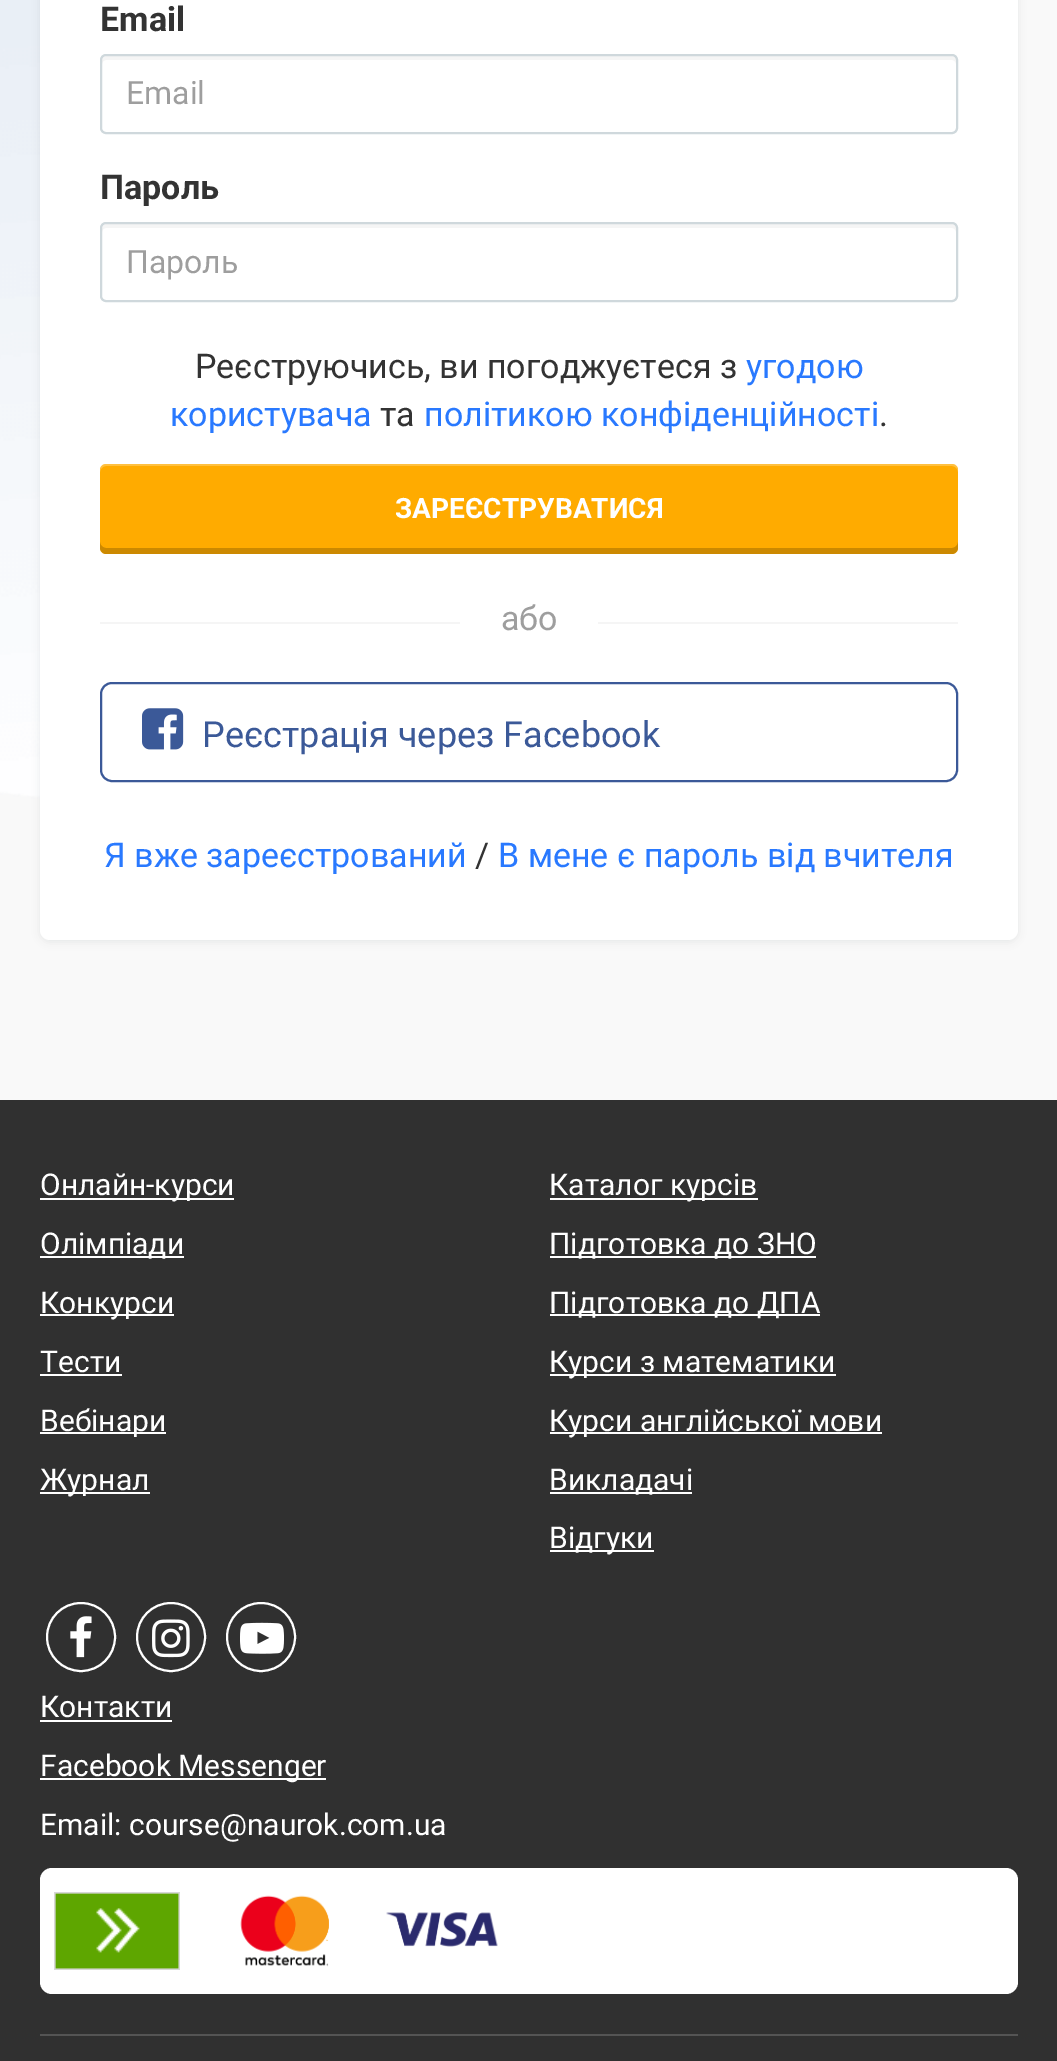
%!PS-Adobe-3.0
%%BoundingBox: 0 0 1057 2061
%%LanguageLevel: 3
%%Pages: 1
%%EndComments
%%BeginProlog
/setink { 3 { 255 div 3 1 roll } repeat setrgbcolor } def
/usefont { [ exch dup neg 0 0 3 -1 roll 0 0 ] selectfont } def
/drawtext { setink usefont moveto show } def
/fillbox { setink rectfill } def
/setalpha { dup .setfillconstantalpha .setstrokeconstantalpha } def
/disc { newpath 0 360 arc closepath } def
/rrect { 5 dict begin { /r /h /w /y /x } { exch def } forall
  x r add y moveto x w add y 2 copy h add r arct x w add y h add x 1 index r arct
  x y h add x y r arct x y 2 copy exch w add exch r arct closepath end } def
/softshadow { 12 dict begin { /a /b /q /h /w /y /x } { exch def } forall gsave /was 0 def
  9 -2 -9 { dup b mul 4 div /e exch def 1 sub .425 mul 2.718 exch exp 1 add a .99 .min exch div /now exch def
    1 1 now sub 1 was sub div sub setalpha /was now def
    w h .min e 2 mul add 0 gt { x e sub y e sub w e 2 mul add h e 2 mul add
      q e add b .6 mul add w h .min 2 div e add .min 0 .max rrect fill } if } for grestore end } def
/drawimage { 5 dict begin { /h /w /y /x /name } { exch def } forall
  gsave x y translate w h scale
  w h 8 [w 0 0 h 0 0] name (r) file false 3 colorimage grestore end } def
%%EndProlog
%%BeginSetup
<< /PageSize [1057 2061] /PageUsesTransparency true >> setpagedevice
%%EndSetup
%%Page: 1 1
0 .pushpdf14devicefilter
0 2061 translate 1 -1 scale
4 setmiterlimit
0 0 1057 2061 249 249 249 fillbox
(assets/img1.rgb) 0 0 40 799 drawimage
57 65 75 setink
40 -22 978 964 10 4 0.1 softshadow
255 255 255 setink
40 -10 978 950 10 rrect fill
(Email) 100 31 /Roboto-Bold 34 51 51 51 drawtext
245 245 245 setink
106 60 moveto 952 60 lineto 954 60 956 62 956 64 curveto 956 60 lineto 956 58 954 56 952 56 curveto 106 56 lineto 104 56 102 58 102 60 curveto 102 64 lineto 102 62 104 60 106 60 curveto closepath fill
207 216 220 setink
2 setlinewidth
101 55 856 78 5 rrect stroke
(Email) 126 104 /Roboto-Regular 32 158 158 158 drawtext
(Пароль) 100 199 /Roboto-Bold 34 51 51 51 drawtext
245 245 245 setink
106 228 moveto 952 228 lineto 954 228 956 230 956 232 curveto 956 228 lineto 956 226 954 224 952 224 curveto 106 224 lineto 104 224 102 226 102 228 curveto 102 232 lineto 102 230 104 228 106 228 curveto closepath fill
207 216 220 setink
101 223 856 78 5 rrect stroke
(Пароль) 126 273 /Roboto-Regular 32 158 158 158 drawtext
(Реєструючись, ви погоджуєтеся з) 195 378 /Roboto-Regular 34 51 51 51 drawtext
(угодою) 746 378 /Roboto-Regular 34 41 121 255 drawtext
(користувача) 170 426 /Roboto-Regular 34 41 121 255 drawtext
(та) 380 426 /Roboto-Regular 34 51 51 51 drawtext
(політикою конфіденційності) 424 426 /Roboto-Regular 34 41 121 255 drawtext
(.) 879 426 /Roboto-Regular 34 51 51 51 drawtext
255 171 0 setink
100 464 858 90 6 rrect fill
0.2 setalpha
0 0 0 setink
100 542 moveto 100 548 lineto 100 551 103 554 106 554 curveto 952 554 lineto 955 554 958 551 958 548 curveto 958 542 lineto 958 545 955 548 952 548 curveto 106 548 lineto 103 548 100 545 100 542 curveto closepath fill
0.25 setalpha
255 255 255 setink
106 466 moveto 952 466 lineto 955 466 958 469 958 472 curveto 958 468 957 464 952 464 curveto 106 464 lineto 101 464 100 468 100 472 curveto 100 469 103 466 106 466 curveto closepath fill
1 setalpha
(ЗАРЕЄСТРУВАТИСЯ) 395 518 /Roboto-Bold 28 255 255 255 drawtext
100 622 858 2 245 245 245 fillbox
460 622 138 2 255 255 255 fillbox
(або) 501 630 /Roboto-Regular 34 158 158 158 drawtext
59 89 152 setink
101 683 856 98 11 rrect stroke
(assets/img2.rgb) 142 708 42 42 drawimage
(Реєстрація через Facebook) 202 747 /Roboto-Regular 36 59 89 152 drawtext
(Я вже зареєстрований) 104 867 /Roboto-Regular 34 41 121 255 drawtext
(/) 475 867 /Roboto-Regular 34 51 51 51 drawtext
(В мене є пароль від вчителя) 498 867 /Roboto-Regular 34 41 121 255 drawtext
0 1100 1057 961 48 48 48 fillbox
40 1198 194 2 255 255 255 fillbox
(Онлайн-курси) 40 1195 /Roboto-Regular 30 255 255 255 drawtext
40 1256 144 2 255 255 255 fillbox
(Олімпіади) 40 1254 /Roboto-Regular 30 255 255 255 drawtext
40 1314 134 2 255 255 255 fillbox
(Конкурси) 40 1313 /Roboto-Regular 30 255 255 255 drawtext
(Тести) 40 1372 /Roboto-Regular 30 255 255 255 drawtext
40 1374 82 2 255 255 255 fillbox
40 1432 126 2 255 255 255 fillbox
(Вебінари) 40 1431 /Roboto-Regular 30 255 255 255 drawtext
40 1492 110 2 255 255 255 fillbox
(Журнал) 40 1490 /Roboto-Regular 30 255 255 255 drawtext
550 1198 208 2 255 255 255 fillbox
(Каталог курсів) 549 1195 /Roboto-Regular 30 255 255 255 drawtext
550 1256 266 2 255 255 255 fillbox
(Підготовка до ЗНО) 549 1254 /Roboto-Regular 30 255 255 255 drawtext
550 1314 270 2 255 255 255 fillbox
(Підготовка до ДПА) 549 1313 /Roboto-Regular 30 255 255 255 drawtext
550 1374 286 2 255 255 255 fillbox
(Курси з математики) 549 1372 /Roboto-Regular 30 255 255 255 drawtext
550 1432 332 2 255 255 255 fillbox
(Курси англійської мови) 549 1431 /Roboto-Regular 30 255 255 255 drawtext
550 1492 142 2 255 255 255 fillbox
(Викладачі) 549 1490 /Roboto-Regular 30 255 255 255 drawtext
550 1550 104 2 255 255 255 fillbox
(Відгуки) 549 1548 /Roboto-Regular 30 255 255 255 drawtext
81 1637 34 disc stroke
(assets/img3.rgb) 70 1616 22 42 drawimage
171 1637 34 disc stroke
(assets/img4.rgb) 152 1619 38 39 drawimage
261 1637 34 disc stroke
(assets/img5.rgb) 240 1622 44 32 drawimage
(Контакти) 40 1717 /Roboto-Regular 30 255 255 255 drawtext
40 1720 132 2 255 255 255 fillbox
40 1778 286 2 255 255 255 fillbox
(Facebook Messenger) 40 1776 /Roboto-Regular 30 255 255 255 drawtext
(Email: course@naurok.com.ua) 40 1835 /Roboto-Regular 30 255 255 255 drawtext
40 1868 978 126 12 rrect fill
(assets/img6.rgb) 54 1892 126 78 drawimage
(assets/img7.rgb) 240 1895 258 72 drawimage
40 2034 978 2 84 84 84 fillbox
.poppdf14devicefilter showpage
%%EOF
